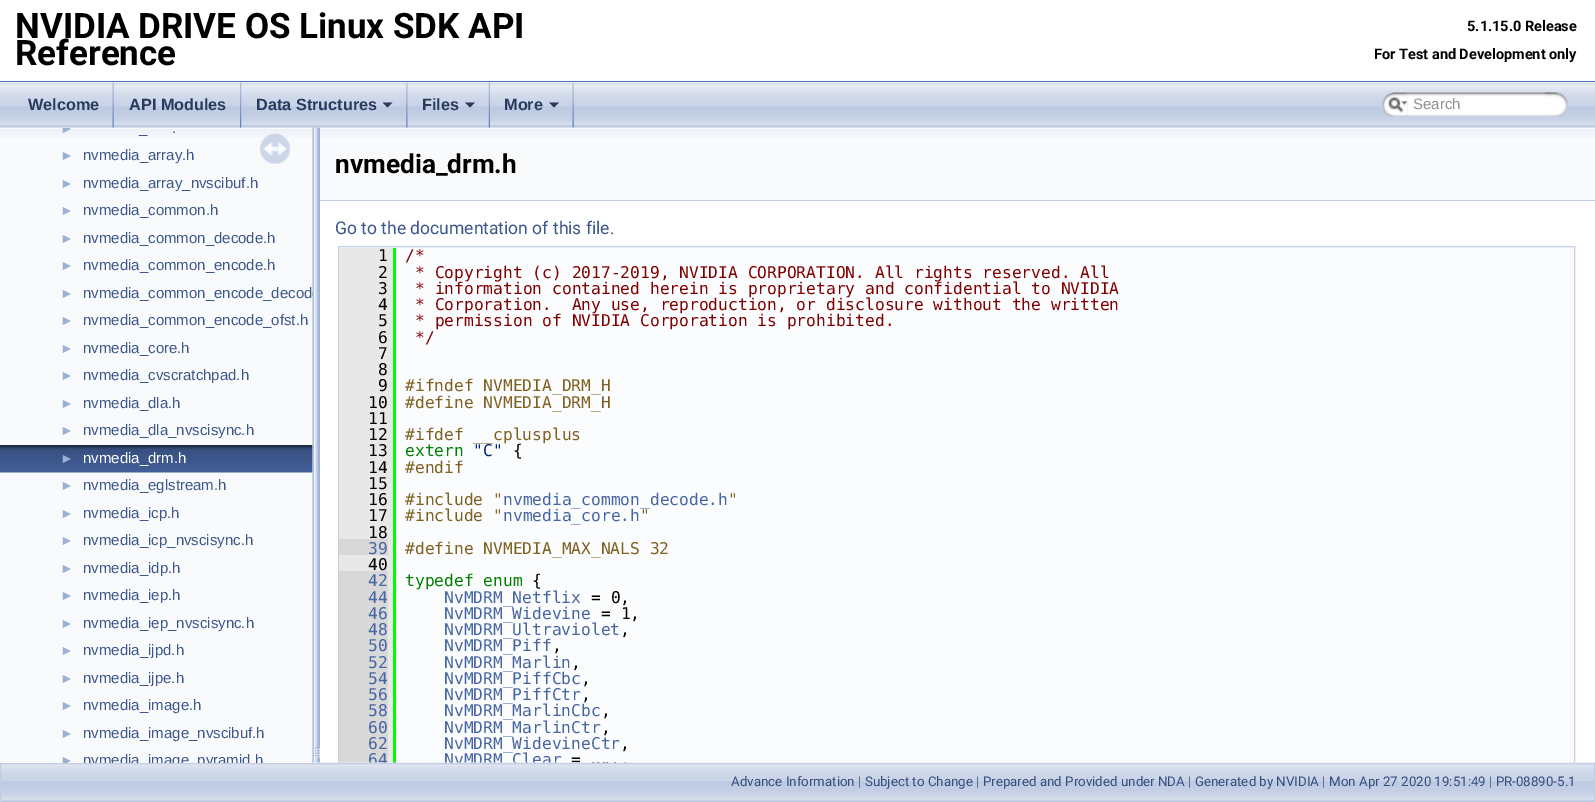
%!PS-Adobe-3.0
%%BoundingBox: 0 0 1595 802
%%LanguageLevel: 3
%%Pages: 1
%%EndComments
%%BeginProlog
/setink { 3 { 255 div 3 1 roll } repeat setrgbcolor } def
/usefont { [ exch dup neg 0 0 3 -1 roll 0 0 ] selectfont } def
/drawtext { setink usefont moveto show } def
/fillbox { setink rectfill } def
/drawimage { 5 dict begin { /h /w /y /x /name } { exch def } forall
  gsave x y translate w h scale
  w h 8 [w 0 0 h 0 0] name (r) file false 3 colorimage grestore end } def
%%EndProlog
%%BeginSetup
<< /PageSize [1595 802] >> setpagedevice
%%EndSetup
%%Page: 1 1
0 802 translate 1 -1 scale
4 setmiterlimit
0 0 1595 802 255 255 255 fillbox
0 81 1595 1 83 115 180 fillbox
(NVIDIA DRIVE OS Linux SDK API) 15 38 /Roboto-Bold 35 0 0 0 drawtext
(Reference) 15 65 /Roboto-Bold 35 0 0 0 drawtext
(5.1.15.0 Release) 1467 31 /Roboto-Bold 14.5 0 0 0 drawtext
(For Test and Development only) 1374 59 /Roboto-Bold 14.5 0 0 0 drawtext
339 247 1235 516 251 252 253 fillbox
196 207 229 setink
338.5 246.5 1236 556 rectstroke
393 248 3 515 0 255 0 fillbox
388 571 5 192 232 232 232 fillbox
339 571 49 192 216 216 216 fillbox
(64) 368 765 /DejaVuSansMono-Regular 16.25 70 101 162 drawtext
(NvMDRM_Clear) 444 765 /DejaVuSansMono-Regular 16.25 70 101 162 drawtext
(=) 571 765 /DejaVuSansMono-Regular 16.25 0 0 0 drawtext
(assets/img16.rgb) 1 762 1594 40 drawimage
0 128 313 635 249 250 252 fillbox
(assets/img11.rgb) 0 129 313 8 drawimage
(assets/img12.rgb) 0 445 313 28 drawimage
(assets/img14.rgb) 312 127 8 636 drawimage
(assets/img1.rgb) 0 82 1595 46 drawimage
(assets/img2.rgb) 112 82 2 46 drawimage
(Welcome) 28 110 /LiberationSans-Bold 16.25 40 58 93 drawtext
(assets/img3.rgb) 240 82 2 46 drawimage
(API Modules) 129 110 /LiberationSans-Bold 16.25 40 58 93 drawtext
(assets/img4.rgb) 406 82 2 46 drawimage
(Data Structures) 256 110 /LiberationSans-Bold 16.25 40 58 93 drawtext
382.5 102.5 moveto 392.5 102.5 lineto 387.5 107.5 lineto closepath fill
(assets/img5.rgb) 488 82 2 46 drawimage
(Files) 422 110 /LiberationSans-Bold 16.25 40 58 93 drawtext
465 102.5 moveto 475 102.5 lineto 470 107.5 lineto closepath fill
(assets/img6.rgb) 572 82 2 46 drawimage
(More) 504 110 /LiberationSans-Bold 16.25 40 58 93 drawtext
549 102.5 moveto 559 102.5 lineto 554 107.5 lineto closepath fill
(assets/img7.rgb) 1382 92 26 25 drawimage
(assets/img8.rgb) 1388 97 20 16 drawimage
(assets/img9.rgb) 1407 92 145 25 drawimage
(Search) 1413 109 /LiberationSans-Regular 15 144 144 144 drawtext
(assets/img10.rgb) 1545 92 23 25 drawimage
gsave
0 128 313 635 rectclip
(►) 60 133 /LiberationSans-Regular 14 156 175 212 drawtext
grestore
(.) 172 133 /LiberationSans-Regular 15 61 87 140 drawtext
(_) 139 133 /LiberationSans-Regular 15 61 87 140 drawtext
(►) 60 160 /LiberationSans-Regular 14 156 175 212 drawtext
(nvmedia_array.h) 83 160 /LiberationSans-Regular 15 61 87 140 drawtext
(►) 60 188 /LiberationSans-Regular 14 156 175 212 drawtext
(nvmedia_array_nvscibuf.h) 83 188 /LiberationSans-Regular 15 61 87 140 drawtext
(►) 60 215 /LiberationSans-Regular 14 156 175 212 drawtext
(nvmedia_common.h) 83 215 /LiberationSans-Regular 15 61 87 140 drawtext
(►) 60 243 /LiberationSans-Regular 14 156 175 212 drawtext
(nvmedia_common_decode.h) 83 243 /LiberationSans-Regular 15 61 87 140 drawtext
(►) 60 270 /LiberationSans-Regular 14 156 175 212 drawtext
(nvmedia_common_encode.h) 83 270 /LiberationSans-Regular 15 61 87 140 drawtext
(►) 60 298 /LiberationSans-Regular 14 156 175 212 drawtext
(nvmedia_common_encode_decod) 83 298 /LiberationSans-Regular 15 61 87 140 drawtext
(►) 60 325 /LiberationSans-Regular 14 156 175 212 drawtext
(nvmedia_common_encode_ofst.h) 83 325 /LiberationSans-Regular 15 61 87 140 drawtext
(►) 60 353 /LiberationSans-Regular 14 156 175 212 drawtext
(nvmedia_core.h) 83 353 /LiberationSans-Regular 15 61 87 140 drawtext
(►) 60 380 /LiberationSans-Regular 14 156 175 212 drawtext
(nvmedia_cvscratchpad.h) 83 380 /LiberationSans-Regular 15 61 87 140 drawtext
(►) 60 408 /LiberationSans-Regular 14 156 175 212 drawtext
(nvmedia_dla.h) 83 408 /LiberationSans-Regular 15 61 87 140 drawtext
(►) 60 435 /LiberationSans-Regular 14 156 175 212 drawtext
(nvmedia_dla_nvscisync.h) 83 435 /LiberationSans-Regular 15 61 87 140 drawtext
(►) 60 463 /LiberationSans-Regular 14 156 175 212 drawtext
(nvmedia_drm.h) 83 463 /LiberationSans-Regular 15 255 255 255 drawtext
(►) 60 490 /LiberationSans-Regular 14 156 175 212 drawtext
(nvmedia_eglstream.h) 83 490 /LiberationSans-Regular 15 61 87 140 drawtext
(►) 60 518 /LiberationSans-Regular 14 156 175 212 drawtext
(nvmedia_icp.h) 83 518 /LiberationSans-Regular 15 61 87 140 drawtext
(►) 60 545 /LiberationSans-Regular 14 156 175 212 drawtext
(nvmedia_icp_nvscisync.h) 83 545 /LiberationSans-Regular 15 61 87 140 drawtext
(►) 60 573 /LiberationSans-Regular 14 156 175 212 drawtext
(nvmedia_idp.h) 83 573 /LiberationSans-Regular 15 61 87 140 drawtext
(►) 60 600 /LiberationSans-Regular 14 156 175 212 drawtext
(nvmedia_iep.h) 83 600 /LiberationSans-Regular 15 61 87 140 drawtext
(►) 60 628 /LiberationSans-Regular 14 156 175 212 drawtext
(nvmedia_iep_nvscisync.h) 83 628 /LiberationSans-Regular 15 61 87 140 drawtext
(►) 60 655 /LiberationSans-Regular 14 156 175 212 drawtext
(nvmedia_ijpd.h) 83 655 /LiberationSans-Regular 15 61 87 140 drawtext
(►) 60 683 /LiberationSans-Regular 14 156 175 212 drawtext
(nvmedia_ijpe.h) 83 683 /LiberationSans-Regular 15 61 87 140 drawtext
(►) 60 710 /LiberationSans-Regular 14 156 175 212 drawtext
(nvmedia_image.h) 83 710 /LiberationSans-Regular 15 61 87 140 drawtext
(►) 60 738 /LiberationSans-Regular 14 156 175 212 drawtext
(nvmedia_image_nvscibuf.h) 83 738 /LiberationSans-Regular 15 61 87 140 drawtext
gsave
0 128 313 635 rectclip
(►) 60 765 /LiberationSans-Regular 14 156 175 212 drawtext
(nvmedia_image_pyramid.h) 83 765 /LiberationSans-Regular 15 61 87 140 drawtext
grestore
(assets/img13.rgb) 260 133 30 31 drawimage
320 128 1275 72 249 250 252 fillbox
(assets/img15.rgb) 320 129 1275 8 drawimage
320 200 1275 1 196 207 229 fillbox
(nvmedia_drm.h) 335 173 /Roboto-Bold 26.25 0 0 0 drawtext
(Go to the documentation of this file.) 335 234 /Roboto-Regular 17.5 61 87 140 drawtext
339 248 54 291 232 232 232 fillbox
(1) 378 261 /DejaVuSansMono-Regular 16.25 0 0 0 drawtext
(/*) 405 261 /DejaVuSansMono-Regular 16.25 128 0 0 drawtext
(2) 378 278 /DejaVuSansMono-Regular 16.25 0 0 0 drawtext
(* Copyright \(c\) 2017-2019, NVIDIA CORPORATION. All rights reserved. All) 415 278 /DejaVuSansMono-Regular 16.25 128 0 0 drawtext
(3) 378 294 /DejaVuSansMono-Regular 16.25 0 0 0 drawtext
(* information contained herein is proprietary and confidential to NVIDIA) 415 294 /DejaVuSansMono-Regular 16.25 128 0 0 drawtext
(4) 378 310 /DejaVuSansMono-Regular 16.25 0 0 0 drawtext
(* Corporation.  Any use, reproduction, or disclosure without the written) 415 310 /DejaVuSansMono-Regular 16.25 128 0 0 drawtext
(5) 378 326 /DejaVuSansMono-Regular 16.25 0 0 0 drawtext
(* permission of NVIDIA Corporation is prohibited.) 415 326 /DejaVuSansMono-Regular 16.25 128 0 0 drawtext
(6) 378 343 /DejaVuSansMono-Regular 16.25 0 0 0 drawtext
(*/) 415 343 /DejaVuSansMono-Regular 16.25 128 0 0 drawtext
(7) 378 359 /DejaVuSansMono-Regular 16.25 0 0 0 drawtext
(8) 378 375 /DejaVuSansMono-Regular 16.25 0 0 0 drawtext
(9) 378 391 /DejaVuSansMono-Regular 16.25 0 0 0 drawtext
(#ifndef NVMEDIA_DRM_H) 405 391 /DejaVuSansMono-Regular 16.25 128 96 32 drawtext
(10) 368 408 /DejaVuSansMono-Regular 16.25 0 0 0 drawtext
(#define NVMEDIA_DRM_H) 405 408 /DejaVuSansMono-Regular 16.25 128 96 32 drawtext
(11) 368 424 /DejaVuSansMono-Regular 16.25 0 0 0 drawtext
(12) 368 440 /DejaVuSansMono-Regular 16.25 0 0 0 drawtext
(#ifdef __cplusplus) 405 440 /DejaVuSansMono-Regular 16.25 128 96 32 drawtext
(13) 368 456 /DejaVuSansMono-Regular 16.25 0 0 0 drawtext
(extern) 405 456 /DejaVuSansMono-Regular 16.25 0 128 0 drawtext
("C") 473 456 /DejaVuSansMono-Regular 16.25 0 32 128 drawtext
({) 513 456 /DejaVuSansMono-Regular 16.25 0 0 0 drawtext
(14) 368 473 /DejaVuSansMono-Regular 16.25 0 0 0 drawtext
(#endif) 405 473 /DejaVuSansMono-Regular 16.25 128 96 32 drawtext
(15) 368 489 /DejaVuSansMono-Regular 16.25 0 0 0 drawtext
(16) 368 505 /DejaVuSansMono-Regular 16.25 0 0 0 drawtext
(#include ") 405 505 /DejaVuSansMono-Regular 16.25 128 96 32 drawtext
(nvmedia_common_decode.h) 503 505 /DejaVuSansMono-Regular 16.25 70 101 162 drawtext
(") 728 505 /DejaVuSansMono-Regular 16.25 128 96 32 drawtext
(17) 368 521 /DejaVuSansMono-Regular 16.25 0 0 0 drawtext
(#include ") 405 521 /DejaVuSansMono-Regular 16.25 128 96 32 drawtext
(nvmedia_core.h) 503 521 /DejaVuSansMono-Regular 16.25 70 101 162 drawtext
(") 640 521 /DejaVuSansMono-Regular 16.25 128 96 32 drawtext
(18) 368 538 /DejaVuSansMono-Regular 16.25 0 0 0 drawtext
339 539 49 16 216 216 216 fillbox
(39) 368 554 /DejaVuSansMono-Regular 16.25 70 101 162 drawtext
388 539 5 16 232 232 232 fillbox
(#define NVMEDIA_MAX_NALS 32) 405 554 /DejaVuSansMono-Regular 16.25 128 96 32 drawtext
339 555 54 16 232 232 232 fillbox
(40) 368 570 /DejaVuSansMono-Regular 16.25 0 0 0 drawtext
(42) 368 586 /DejaVuSansMono-Regular 16.25 70 101 162 drawtext
(typedef enum) 405 586 /DejaVuSansMono-Regular 16.25 0 128 0 drawtext
({) 532 586 /DejaVuSansMono-Regular 16.25 0 0 0 drawtext
(44) 368 603 /DejaVuSansMono-Regular 16.25 70 101 162 drawtext
(NvMDRM_Netflix) 444 603 /DejaVuSansMono-Regular 16.25 70 101 162 drawtext
(= 0,) 591 603 /DejaVuSansMono-Regular 16.25 0 0 0 drawtext
(46) 368 619 /DejaVuSansMono-Regular 16.25 70 101 162 drawtext
(NvMDRM_Widevine) 444 619 /DejaVuSansMono-Regular 16.25 70 101 162 drawtext
(= 1,) 601 619 /DejaVuSansMono-Regular 16.25 0 0 0 drawtext
(48) 368 635 /DejaVuSansMono-Regular 16.25 70 101 162 drawtext
(NvMDRM_Ultraviolet) 444 635 /DejaVuSansMono-Regular 16.25 70 101 162 drawtext
(,) 620 635 /DejaVuSansMono-Regular 16.25 0 0 0 drawtext
(50) 368 651 /DejaVuSansMono-Regular 16.25 70 101 162 drawtext
(NvMDRM_Piff) 444 651 /DejaVuSansMono-Regular 16.25 70 101 162 drawtext
(,) 552 651 /DejaVuSansMono-Regular 16.25 0 0 0 drawtext
(52) 368 668 /DejaVuSansMono-Regular 16.25 70 101 162 drawtext
(NvMDRM_Marlin) 444 668 /DejaVuSansMono-Regular 16.25 70 101 162 drawtext
(,) 571 668 /DejaVuSansMono-Regular 16.25 0 0 0 drawtext
(54) 368 684 /DejaVuSansMono-Regular 16.25 70 101 162 drawtext
(NvMDRM_PiffCbc) 444 684 /DejaVuSansMono-Regular 16.25 70 101 162 drawtext
(,) 581 684 /DejaVuSansMono-Regular 16.25 0 0 0 drawtext
(56) 368 700 /DejaVuSansMono-Regular 16.25 70 101 162 drawtext
(NvMDRM_PiffCtr) 444 700 /DejaVuSansMono-Regular 16.25 70 101 162 drawtext
(,) 581 700 /DejaVuSansMono-Regular 16.25 0 0 0 drawtext
(58) 368 716 /DejaVuSansMono-Regular 16.25 70 101 162 drawtext
(NvMDRM_MarlinCbc) 444 716 /DejaVuSansMono-Regular 16.25 70 101 162 drawtext
(,) 601 716 /DejaVuSansMono-Regular 16.25 0 0 0 drawtext
(60) 368 733 /DejaVuSansMono-Regular 16.25 70 101 162 drawtext
(NvMDRM_MarlinCtr) 444 733 /DejaVuSansMono-Regular 16.25 70 101 162 drawtext
(,) 601 733 /DejaVuSansMono-Regular 16.25 0 0 0 drawtext
(62) 368 749 /DejaVuSansMono-Regular 16.25 70 101 162 drawtext
(NvMDRM_WidevineCtr) 444 749 /DejaVuSansMono-Regular 16.25 70 101 162 drawtext
(,) 620 749 /DejaVuSansMono-Regular 16.25 0 0 0 drawtext
194 205 228 setink
0.5 763.5 1594 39 rectstroke
(Advance Information | Subject to Change | Prepared and Provided under NDA | Generated by NVIDIA | Mon Apr 27 2020 19:51:49 | PR-08890-5.1) 731 786 /Roboto-Regular 13.33 54 77 124 drawtext
showpage
%%EOF
